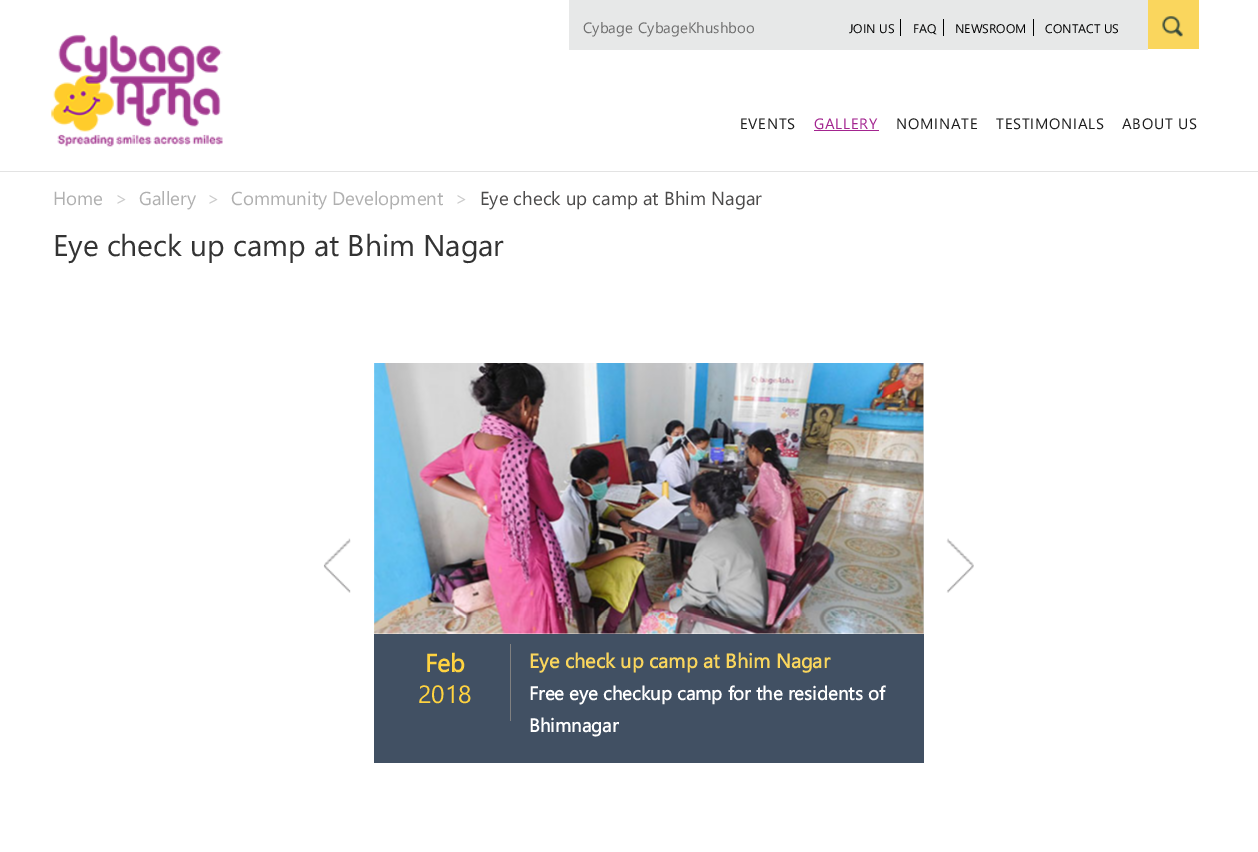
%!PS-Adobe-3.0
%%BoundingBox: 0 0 1258 852
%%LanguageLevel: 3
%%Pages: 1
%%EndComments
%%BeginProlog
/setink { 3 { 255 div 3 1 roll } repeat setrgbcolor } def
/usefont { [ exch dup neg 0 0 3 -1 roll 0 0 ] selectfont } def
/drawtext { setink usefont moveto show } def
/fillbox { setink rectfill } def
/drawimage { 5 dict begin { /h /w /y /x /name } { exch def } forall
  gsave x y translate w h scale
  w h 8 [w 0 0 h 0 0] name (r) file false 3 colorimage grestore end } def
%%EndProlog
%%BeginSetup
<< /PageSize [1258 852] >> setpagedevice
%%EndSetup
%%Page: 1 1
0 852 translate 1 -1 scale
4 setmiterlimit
0 0 1258 852 255 255 255 fillbox
0 171 1258 1 227 227 227 fillbox
569 0 579 50 231 232 232 fillbox
(Cybage) 583 33 /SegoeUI-Regular 15 112 112 112 drawtext
(CybageKhushboo) 638 33 /SegoeUI-Regular 15 112 112 112 drawtext
(JOIN US) 849 33 /SegoeUI-Regular 12.5 1 1 1 drawtext
900 19 1 17 1 1 1 fillbox
(FAQ) 913 33 /SegoeUI-Regular 12.5 1 1 1 drawtext
943 19 1 17 1 1 1 fillbox
(NEWSROOM) 955 33 /SegoeUI-Regular 12.5 1 1 1 drawtext
1033 19 1 17 1 1 1 fillbox
(CONTACT US) 1045 33 /SegoeUI-Regular 12.5 1 1 1 drawtext
1148 0 51 49 250 214 93 fillbox
(assets/img1.rgb) 1162 16 21 21 drawimage
(assets/img2.rgb) 51 34 172 113 drawimage
/SegoeUI-Regular 15 usefont
29 29 29 setink
740 129 moveto 0.75 0 (EVENTS) ashow
163 36 143 setink
814 129 moveto 0.75 0 (GALLERY) ashow
814 130 65 1 163 36 143 fillbox
29 29 29 setink
896 129 moveto 0.75 0 (NOMINATE) ashow
996 129 moveto 0.75 0 (TESTIMONIALS) ashow
1122 129 moveto 0.75 0 (ABOUT US) ashow
(Home) 53 205 /SegoeUI-Regular 18.75 176 176 176 drawtext
(>) 115 205 /SegoeUI-Regular 18.75 204 204 204 drawtext
(Gallery) 139 205 /SegoeUI-Regular 18.75 176 176 176 drawtext
(>) 207 205 /SegoeUI-Regular 18.75 204 204 204 drawtext
(Community Development) 231 205 /SegoeUI-Regular 18.75 176 176 176 drawtext
(>) 455 205 /SegoeUI-Regular 18.75 204 204 204 drawtext
(Eye check up camp at Bhim Nagar) 480 205 /SegoeUI-Regular 18.75 76 75 75 drawtext
(Eye check up camp at Bhim Nagar) 53 256 /SegoeUI-Regular 30 51 51 51 drawtext
(assets/img3.rgb) 323 538 28 55 drawimage
(assets/img4.rgb) 946 538 28 55 drawimage
(assets/img6.rgb) 374 363 550 271 drawimage
(assets/img5.rgb) 923 363 1 271 drawimage
374 634 550 129 65 80 99 fillbox
510 644 1 77 128 128 128 fillbox
(Feb) 425 672 /SegoeUI-Bold 25 255 211 64 drawtext
(2018) 418 703 /SegoeUI-Regular 25 255 211 64 drawtext
(Eye check up camp at Bhim Nagar) 529 668 /SegoeUI-Bold 20 250 214 93 drawtext
(Free eye checkup camp for the residents of) 529 700 /SegoeUI-Bold 18.75 255 255 255 drawtext
(Bhimnagar) 529 732 /SegoeUI-Bold 18.75 255 255 255 drawtext
showpage
%%EOF
